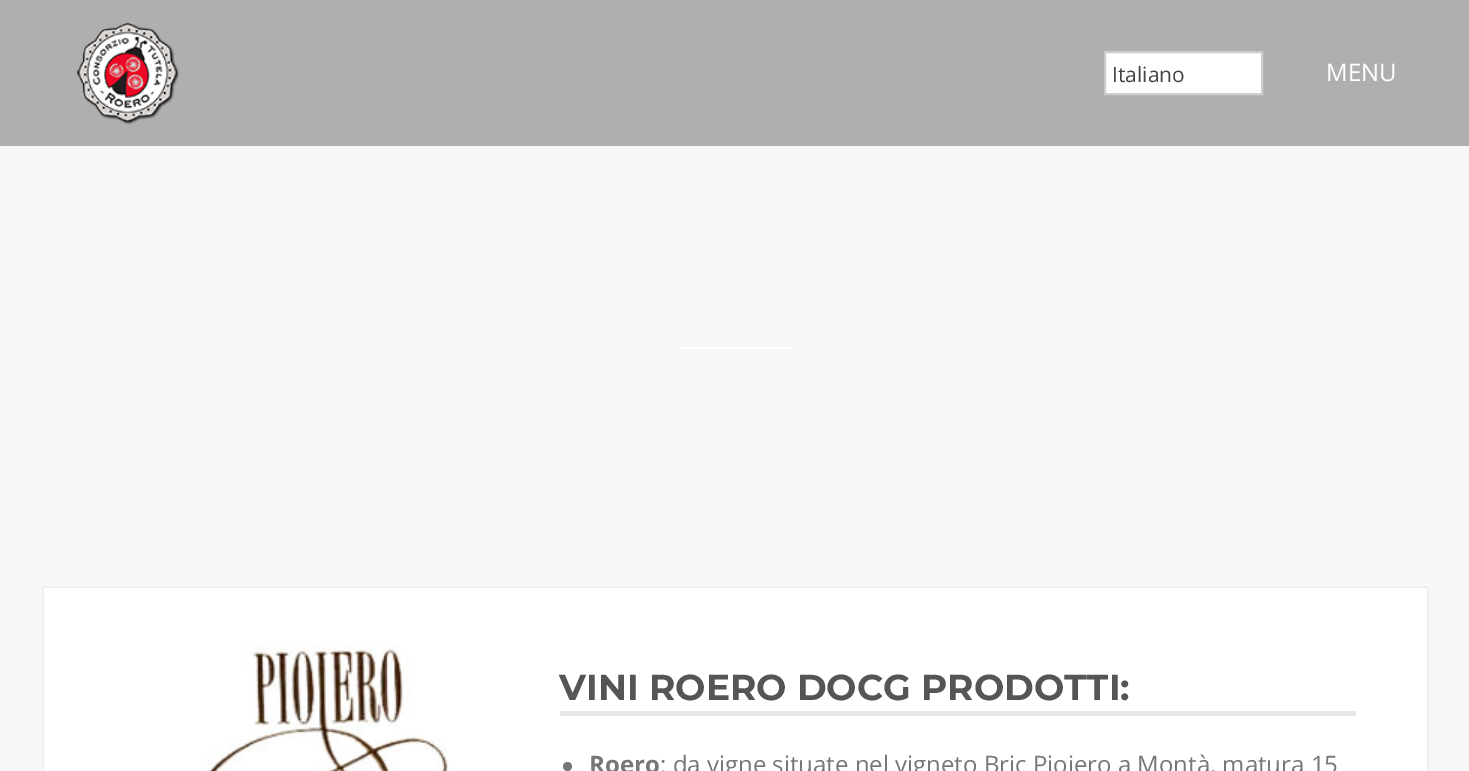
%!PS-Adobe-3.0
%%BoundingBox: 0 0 1469 771
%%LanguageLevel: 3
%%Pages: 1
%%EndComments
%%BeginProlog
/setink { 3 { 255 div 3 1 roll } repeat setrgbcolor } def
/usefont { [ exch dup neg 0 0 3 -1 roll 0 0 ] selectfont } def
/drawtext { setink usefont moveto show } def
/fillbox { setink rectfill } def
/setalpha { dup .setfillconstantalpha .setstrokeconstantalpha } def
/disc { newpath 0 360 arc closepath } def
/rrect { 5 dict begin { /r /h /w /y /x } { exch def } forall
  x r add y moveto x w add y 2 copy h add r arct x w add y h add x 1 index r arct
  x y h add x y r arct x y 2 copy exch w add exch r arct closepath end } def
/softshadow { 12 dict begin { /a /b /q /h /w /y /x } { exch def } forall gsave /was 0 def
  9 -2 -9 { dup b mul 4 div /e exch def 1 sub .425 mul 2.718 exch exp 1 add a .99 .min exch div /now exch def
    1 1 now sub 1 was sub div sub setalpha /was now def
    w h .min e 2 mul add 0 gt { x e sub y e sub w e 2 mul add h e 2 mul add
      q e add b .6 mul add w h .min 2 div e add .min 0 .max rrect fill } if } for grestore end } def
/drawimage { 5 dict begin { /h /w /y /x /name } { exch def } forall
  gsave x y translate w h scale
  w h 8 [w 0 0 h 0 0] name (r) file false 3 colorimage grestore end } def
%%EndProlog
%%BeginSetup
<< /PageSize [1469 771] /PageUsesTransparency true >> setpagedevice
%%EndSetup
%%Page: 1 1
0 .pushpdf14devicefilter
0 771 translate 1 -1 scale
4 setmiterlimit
0 0 1469 771 247 247 247 fillbox
0 0 1469 146 175 175 175 fillbox
(assets/img1.rgb) 77 22 103 103 drawimage
255 255 255 setink
1105 52 moveto 1262 52 lineto 1262 94 lineto 1105 94 lineto closepath gsave fill grestore
205 205 205 setink
2 setlinewidth
stroke
(Italiano) 1112 82 /OpenSans-Regular 21 68 68 68 drawtext
(MENU) 1326 81 /OpenSans-Regular 24 255 255 255 drawtext
678 347 114 2 255 255 255 fillbox
0 0 0 setink
44 588 1383 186 0 1 0.15 softshadow
44 588 1383 183 255 255 255 fillbox
(assets/img2.rgb) 207 643 242 128 drawimage
560 711 796 5 230 230 230 fillbox
(VINI ROERO DOCG PRODOTTI:) 559 700 /Montserrat-Bold 36 85 85 85 drawtext
119 119 119 setink
567.5 766.5 4.5 disc fill
(Roero) 589 773 /OpenSans-Bold 24 119 119 119 drawtext
(: da vigne situate nel vigneto Bric Pioiero a Montà, matura 15) 660 773 /OpenSans-Regular 24 119 119 119 drawtext
.poppdf14devicefilter showpage
%%EOF
